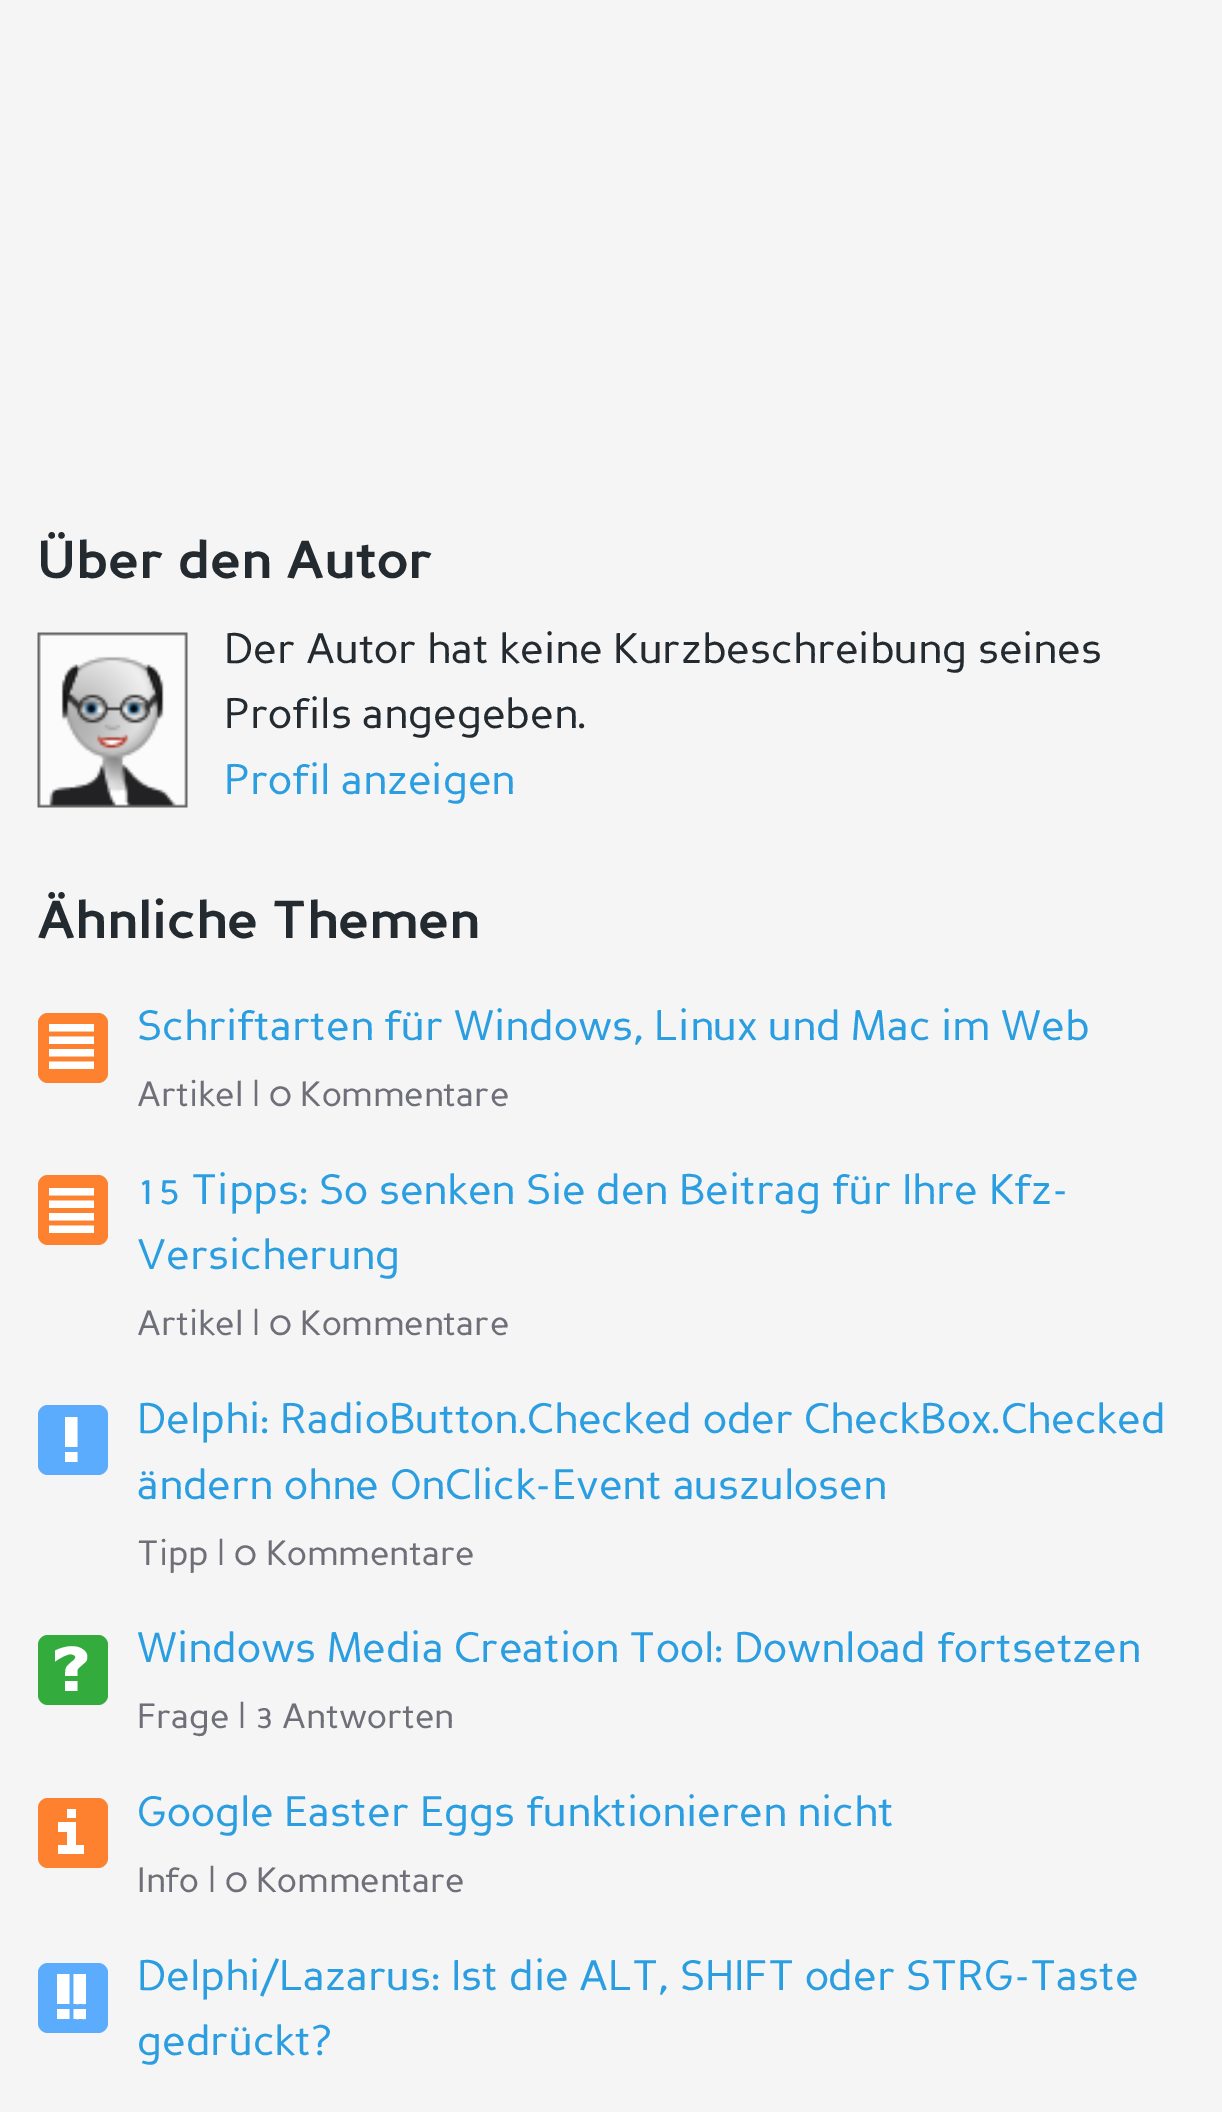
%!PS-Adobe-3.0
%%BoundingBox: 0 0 1222 2112
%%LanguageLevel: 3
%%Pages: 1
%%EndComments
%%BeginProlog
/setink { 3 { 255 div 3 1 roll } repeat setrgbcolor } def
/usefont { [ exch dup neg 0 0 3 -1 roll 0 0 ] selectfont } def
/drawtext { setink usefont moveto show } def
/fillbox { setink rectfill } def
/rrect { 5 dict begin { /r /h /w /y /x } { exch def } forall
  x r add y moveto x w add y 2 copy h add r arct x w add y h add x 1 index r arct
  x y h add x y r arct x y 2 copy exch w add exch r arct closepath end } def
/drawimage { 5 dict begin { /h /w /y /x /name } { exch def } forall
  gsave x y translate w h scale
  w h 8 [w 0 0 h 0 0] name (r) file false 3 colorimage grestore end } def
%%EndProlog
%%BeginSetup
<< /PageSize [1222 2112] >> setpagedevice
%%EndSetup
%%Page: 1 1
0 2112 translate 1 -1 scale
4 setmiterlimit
0 0 1222 2112 245 245 245 fillbox
(Über den Autor) 37 578 /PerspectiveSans-Bold 53.1 35 42 48 drawtext
(assets/img1.rgb) 37 632 151 176 drawimage
(Der Autor hat keine Kurzbeschreibung seines) 224 663 /PerspectiveSans-Regular 42.5 35 42 48 drawtext
(Profils angegeben.) 224 728 /PerspectiveSans-Regular 42.5 35 42 48 drawtext
(Profil anzeigen) 224 794 /PerspectiveSans-Regular 42.5 43 158 225 drawtext
(Ähnliche Themen) 37 938 /PerspectiveSans-Bold 53.1 35 42 48 drawtext
253 129 47 setink
38 1013 70 70 10 rrect fill
(▤) 49 1060 /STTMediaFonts-Medium 45 255 255 255 drawtext
(Schriftarten für Windows, Linux und Mac im Web) 137 1040 /PerspectiveSans-Regular 42.5 43 158 225 drawtext
(Artikel | 0 Kommentare) 137 1106 /PerspectiveSans-Regular 35 111 111 121 drawtext
253 129 47 setink
38 1175 70 70 10 rrect fill
(▤) 49 1224 /STTMediaFonts-Medium 45 255 255 255 drawtext
(15 Tipps: So senken Sie den Beitrag für Ihre Kfz-) 137 1204 /PerspectiveSans-Regular 42.5 43 158 225 drawtext
(Versicherung) 137 1269 /PerspectiveSans-Regular 42.5 43 158 225 drawtext
(Artikel | 0 Kommentare) 137 1335 /PerspectiveSans-Regular 35 111 111 121 drawtext
92 172 253 setink
38 1405 70 70 10 rrect fill
(!) 65 1453 /STTMediaFonts-Medium 45 255 255 255 drawtext
(Delphi: RadioButton.Checked oder CheckBox.Checked) 137 1433 /PerspectiveSans-Regular 42.5 43 158 225 drawtext
(ändern ohne OnClick-Event auszulosen) 137 1499 /PerspectiveSans-Regular 42.5 43 158 225 drawtext
(Tipp | 0 Kommentare) 137 1565 /PerspectiveSans-Regular 35 111 111 121 drawtext
52 171 61 setink
38 1635 70 70 10 rrect fill
(?) 55 1682 /STTMediaFonts-Medium 45 255 255 255 drawtext
(Windows Media Creation Tool: Download fortsetzen) 137 1662 /PerspectiveSans-Regular 42.5 43 158 225 drawtext
(Frage | 3 Antworten) 137 1728 /PerspectiveSans-Regular 35 111 111 121 drawtext
253 129 47 setink
38 1798 70 70 10 rrect fill
255 255 255 setink
58 1832 moveto 67 1832 lineto 67 1845 lineto 58 1845 lineto 58 1854 lineto 84 1854 lineto 84 1845 lineto 76 1845 lineto 76 1822 lineto 58 1822 lineto closepath 67 1818 moveto 76 1818 lineto 76 1809 lineto 67 1809 lineto closepath fill
(Google Easter Eggs funktionieren nicht) 137 1826 /PerspectiveSans-Regular 42.5 43 158 225 drawtext
(Info | 0 Kommentare) 137 1892 /PerspectiveSans-Regular 35 111 111 121 drawtext
92 172 253 setink
38 1963 70 70 10 rrect fill
(‼) 57 2010 /STTMediaFonts-Medium 45 255 255 255 drawtext
(Delphi/Lazarus: Ist die ALT, SHIFT oder STRG-Taste) 137 1990 /PerspectiveSans-Regular 42.5 43 158 225 drawtext
(gedrückt?) 137 2055 /PerspectiveSans-Regular 42.5 43 158 225 drawtext
showpage
%%EOF
